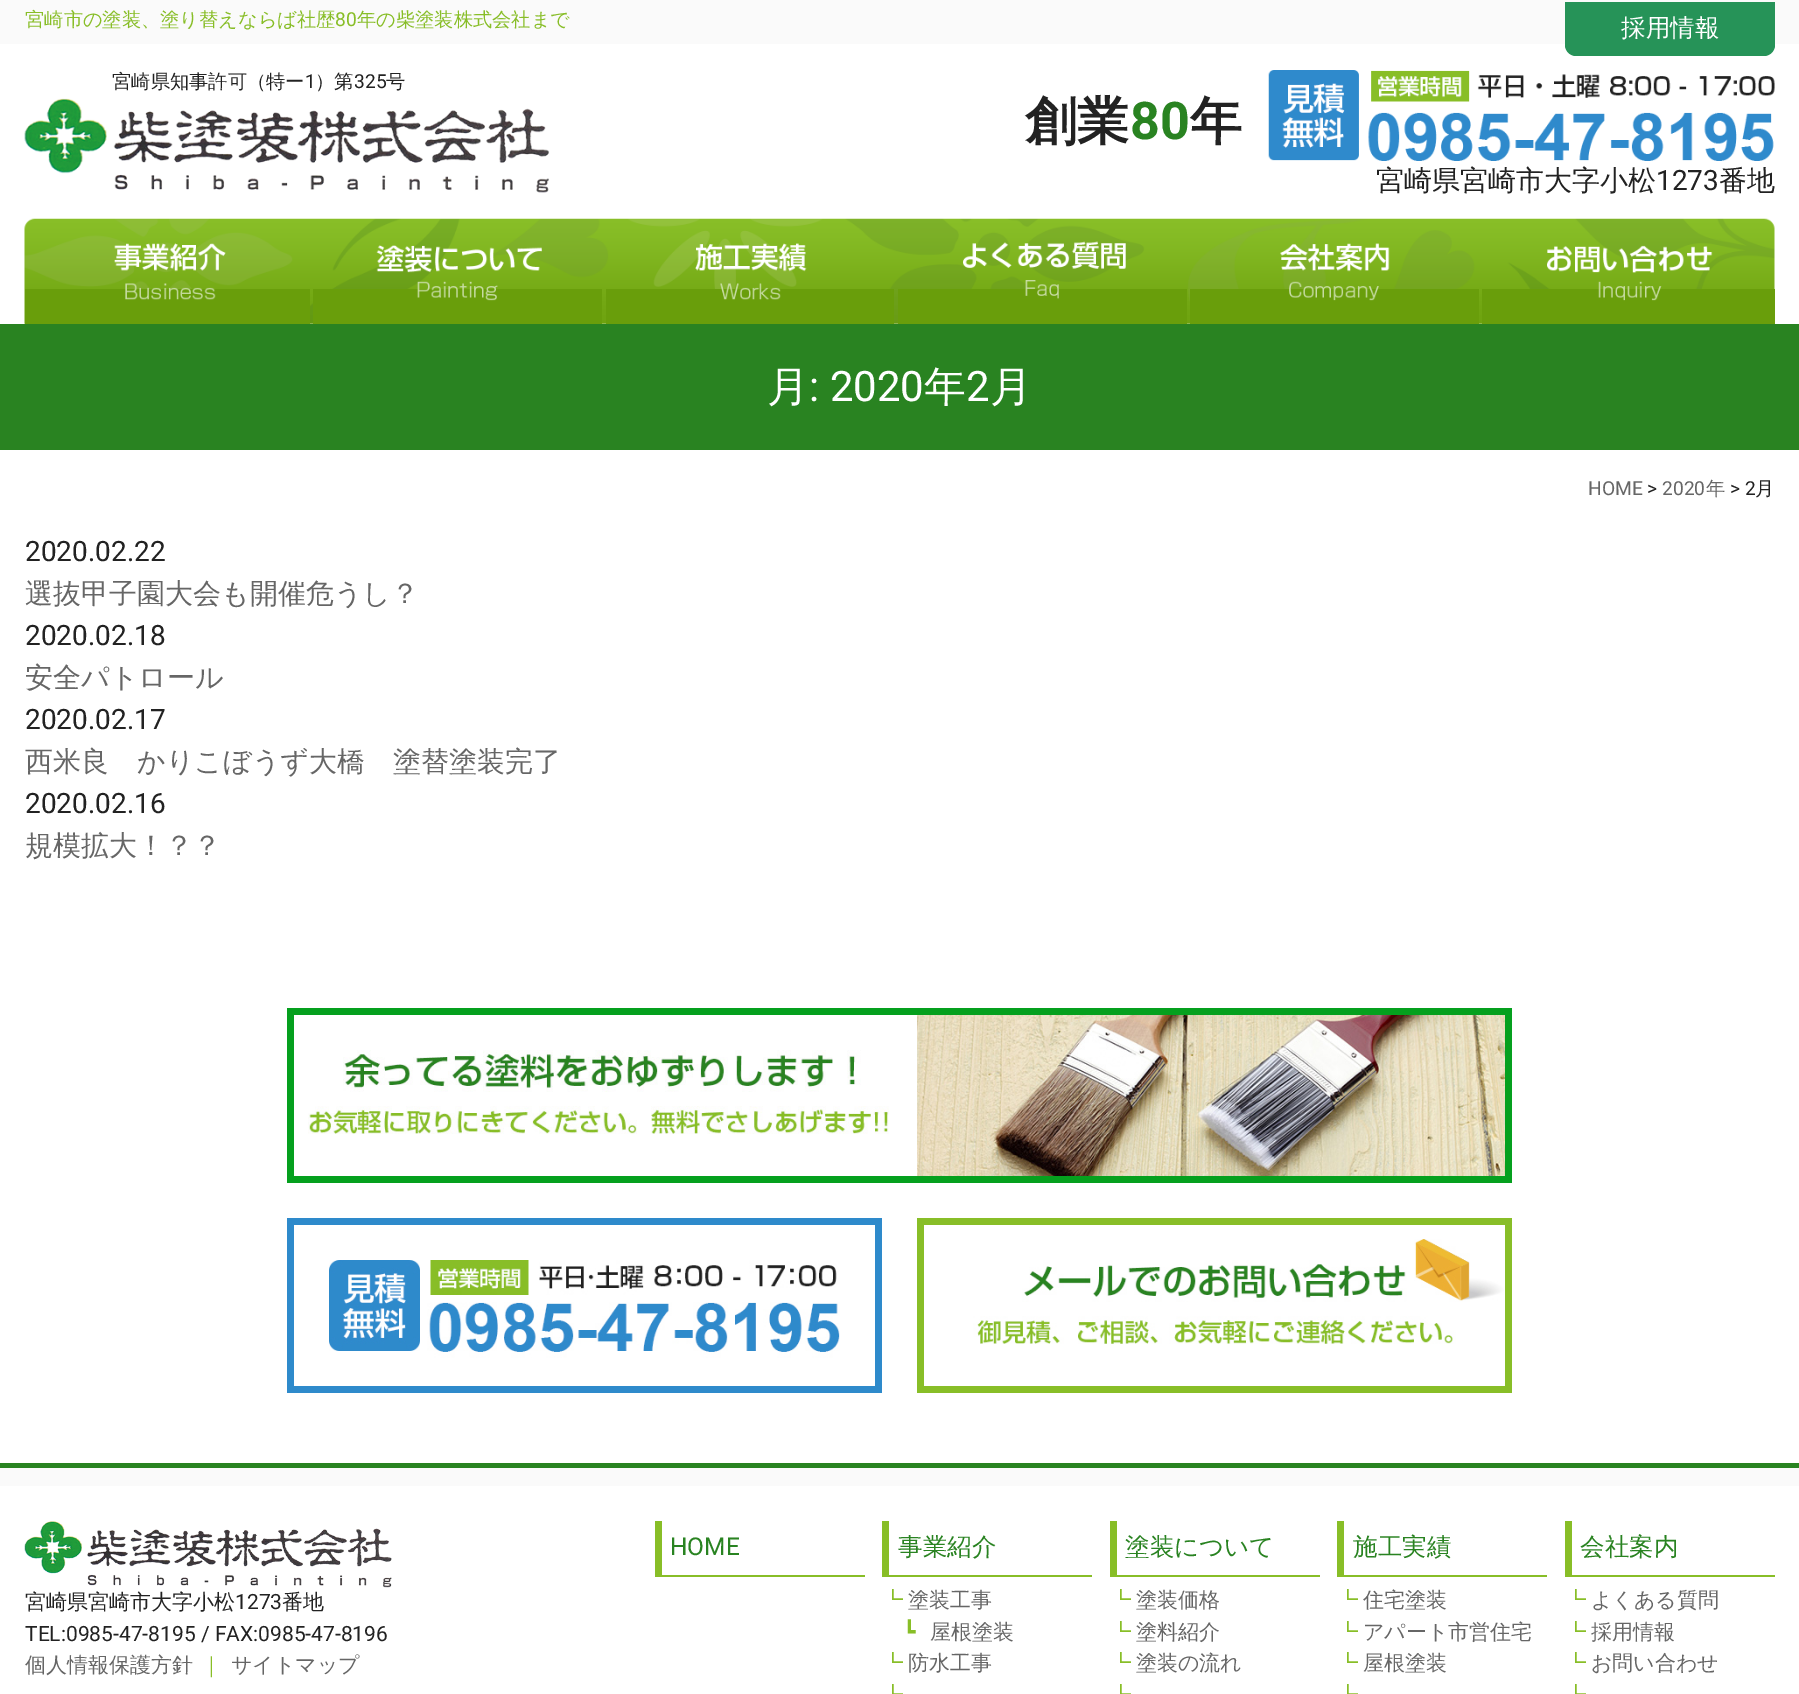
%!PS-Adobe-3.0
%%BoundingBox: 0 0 1799 1694
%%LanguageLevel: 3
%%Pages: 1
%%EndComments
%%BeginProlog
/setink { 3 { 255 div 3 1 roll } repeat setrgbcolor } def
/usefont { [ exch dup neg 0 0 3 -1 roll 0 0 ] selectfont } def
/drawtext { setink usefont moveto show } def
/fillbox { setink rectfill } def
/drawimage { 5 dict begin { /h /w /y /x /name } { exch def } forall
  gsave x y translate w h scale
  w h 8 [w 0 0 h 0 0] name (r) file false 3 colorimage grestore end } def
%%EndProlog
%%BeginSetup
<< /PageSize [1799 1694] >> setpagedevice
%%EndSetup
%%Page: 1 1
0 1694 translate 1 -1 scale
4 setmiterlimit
0 0 1799 1694 255 255 255 fillbox
0 0 1799 44 250 250 250 fillbox
(宮崎市の塗装、塗り替えならば社歴) 25 26 /WenQuanYiZenHei-Medium 19.25 136 190 39 drawtext
(80) 335 26 /Roboto-Regular 19.25 136 190 39 drawtext
(年の柴塗装株式会社まで) 357 26 /WenQuanYiZenHei-Medium 19.25 136 190 39 drawtext
38 147 88 setink
1565 2 moveto 1775 2 lineto 1775 45 lineto 1775 51 1770 56 1764 56 curveto 1576 56 lineto 1570 56 1565 51 1565 45 curveto closepath fill
(採用情報) 1621 36 /WenQuanYiZenHei-Medium 24.5 255 255 255 drawtext
(宮崎県知事許可（特ー) 112 88 /WenQuanYiZenHei-Medium 19.25 34 34 34 drawtext
(1) 305 88 /Roboto-Regular 19.25 34 34 34 drawtext
(）第) 315 88 /WenQuanYiZenHei-Medium 19.25 34 34 34 drawtext
(325) 354 88 /Roboto-Regular 19.25 34 34 34 drawtext
(号) 386 88 /WenQuanYiZenHei-Medium 19.25 34 34 34 drawtext
(assets/img1.rgb) 24 98 526 95 drawimage
(創業) 1025 139 /WenQuanYiZenHei-Bold 52 34 34 34 drawtext
(80) 1130 139 /Roboto-Bold 52 41 131 33 drawtext
(年) 1190 139 /WenQuanYiZenHei-Bold 52 34 34 34 drawtext
(assets/img2.rgb) 1268 70 507 91 drawimage
(宮崎県宮崎市大字小松) 1376 190 /WenQuanYiZenHei-Medium 28 34 34 34 drawtext
(1273) 1656 190 /Roboto-Regular 28 34 34 34 drawtext
(番地) 1719 190 /WenQuanYiZenHei-Medium 28 34 34 34 drawtext
(assets/img3.rgb) 24 218 1751 106 drawimage
25 289 285 35 105 158 11 fillbox
(assets/img4.rgb) 114 243 112 57 drawimage
313 289 289 35 105 158 11 fillbox
(assets/img5.rgb) 376 245 166 56 drawimage
606 289 288 35 105 158 11 fillbox
(assets/img6.rgb) 695 243 112 57 drawimage
898 289 289 35 105 158 11 fillbox
(assets/img7.rgb) 963 241 163 58 drawimage
1190 289 289 35 105 158 11 fillbox
(assets/img8.rgb) 1280 243 110 58 drawimage
1482 289 293 35 105 158 11 fillbox
(assets/img9.rgb) 1547 245 166 56 drawimage
0 324 1799 126 41 131 33 fillbox
(月) 767 401 /WenQuanYiZenHei-Medium 42 255 255 255 drawtext
(: 2020) 809 401 /Roboto-Regular 42 255 255 255 drawtext
(年) 924 401 /WenQuanYiZenHei-Medium 42 255 255 255 drawtext
(2) 966 401 /Roboto-Regular 42 255 255 255 drawtext
(月) 990 401 /WenQuanYiZenHei-Medium 42 255 255 255 drawtext
(HOME) 1588 495 /Roboto-Regular 19.25 102 102 102 drawtext
(>) 1647 495 /Roboto-Regular 19.25 34 34 34 drawtext
(2020) 1662 495 /Roboto-Regular 19.25 102 102 102 drawtext
(年) 1706 495 /WenQuanYiZenHei-Medium 19.25 102 102 102 drawtext
(> 2) 1730 495 /Roboto-Regular 19.25 34 34 34 drawtext
(月) 1755 495 /WenQuanYiZenHei-Medium 19.25 34 34 34 drawtext
(2020.02.22) 25 561 /Roboto-Regular 28 34 34 34 drawtext
(選抜甲子園大会も開催危うし？) 25 603 /WenQuanYiZenHei-Medium 28 102 102 102 drawtext
(2020.02.18) 25 645 /Roboto-Regular 28 34 34 34 drawtext
(安全パトロール) 25 687 /WenQuanYiZenHei-Medium 28 102 102 102 drawtext
(2020.02.17) 25 729 /Roboto-Regular 28 34 34 34 drawtext
(西米良　かりこぼうず大橋　塗替塗装完了) 25 771 /WenQuanYiZenHei-Medium 28 102 102 102 drawtext
(2020.02.16) 25 813 /Roboto-Regular 28 34 34 34 drawtext
(規模拡大！？？) 25 855 /WenQuanYiZenHei-Medium 28 102 102 102 drawtext
(assets/img10.rgb) 287 1008 1225 175 drawimage
(assets/img11.rgb) 287 1218 595 175 drawimage
(assets/img12.rgb) 917 1218 595 175 drawimage
0 1468 1799 18 250 250 250 fillbox
0 1463 1799 5 41 131 33 fillbox
(assets/img13.rgb) 24 1521 368 67 drawimage
(宮崎県宮崎市大字小松) 25 1609 /WenQuanYiZenHei-Medium 21 34 34 34 drawtext
(1273) 235 1609 /Roboto-Regular 21 34 34 34 drawtext
(番地) 282 1609 /WenQuanYiZenHei-Medium 21 34 34 34 drawtext
(TEL:0985-47-8195 / FAX:0985-47-8196) 25 1641 /Roboto-Regular 21 34 34 34 drawtext
(個人情報保護方針) 25 1672 /WenQuanYiZenHei-Medium 21 102 102 102 drawtext
(｜) 201 1672 /WenQuanYiZenHei-Medium 21 136 190 39 drawtext
(サイトマップ) 231 1672 /WenQuanYiZenHei-Medium 21 102 102 102 drawtext
655 1575 210 2 136 190 39 fillbox
655 1521 7 56 136 190 39 fillbox
(HOME) 670 1555 /Roboto-Regular 24.5 41 131 33 drawtext
882 1575 210 2 136 190 39 fillbox
882 1521 7 56 136 190 39 fillbox
(事業紹介) 898 1555 /WenQuanYiZenHei-Medium 24.5 41 131 33 drawtext
(┗) 882 1607 /WenQuanYiZenHei-Medium 21 136 190 39 drawtext
(塗装工事) 908 1607 /WenQuanYiZenHei-Medium 21 102 102 102 drawtext
(┗) 903 1639 /DejaVuSans-Regular 21 136 190 39 drawtext
(屋根塗装) 930 1639 /WenQuanYiZenHei-Medium 21 102 102 102 drawtext
(┗) 882 1670 /WenQuanYiZenHei-Medium 21 136 190 39 drawtext
(防水工事) 908 1670 /WenQuanYiZenHei-Medium 21 102 102 102 drawtext
(┗) 882 1702 /WenQuanYiZenHei-Medium 21 136 190 39 drawtext
1110 1575 210 2 136 190 39 fillbox
1110 1521 7 56 136 190 39 fillbox
(塗装について) 1125 1555 /WenQuanYiZenHei-Medium 24.5 41 131 33 drawtext
(┗) 1110 1607 /WenQuanYiZenHei-Medium 21 136 190 39 drawtext
(塗装価格) 1136 1607 /WenQuanYiZenHei-Medium 21 102 102 102 drawtext
(┗) 1110 1639 /WenQuanYiZenHei-Medium 21 136 190 39 drawtext
(塗料紹介) 1136 1639 /WenQuanYiZenHei-Medium 21 102 102 102 drawtext
(┗) 1110 1670 /WenQuanYiZenHei-Medium 21 136 190 39 drawtext
(塗装の流れ) 1136 1670 /WenQuanYiZenHei-Medium 21 102 102 102 drawtext
(┗) 1110 1702 /WenQuanYiZenHei-Medium 21 136 190 39 drawtext
1337 1575 210 2 136 190 39 fillbox
1337 1521 7 56 136 190 39 fillbox
(施工実績) 1353 1555 /WenQuanYiZenHei-Medium 24.5 41 131 33 drawtext
(┗) 1337 1607 /WenQuanYiZenHei-Medium 21 136 190 39 drawtext
(住宅塗装) 1363 1607 /WenQuanYiZenHei-Medium 21 102 102 102 drawtext
(┗) 1337 1639 /WenQuanYiZenHei-Medium 21 136 190 39 drawtext
(アパート市営住宅) 1363 1639 /WenQuanYiZenHei-Medium 21 102 102 102 drawtext
(┗) 1337 1670 /WenQuanYiZenHei-Medium 21 136 190 39 drawtext
(屋根塗装) 1363 1670 /WenQuanYiZenHei-Medium 21 102 102 102 drawtext
(┗) 1337 1702 /WenQuanYiZenHei-Medium 21 136 190 39 drawtext
1565 1575 210 2 136 190 39 fillbox
1565 1521 7 56 136 190 39 fillbox
(会社案内) 1580 1555 /WenQuanYiZenHei-Medium 24.5 41 131 33 drawtext
(┗) 1565 1607 /WenQuanYiZenHei-Medium 21 136 190 39 drawtext
(よくある質問) 1591 1607 /WenQuanYiZenHei-Medium 21 102 102 102 drawtext
(┗) 1565 1639 /WenQuanYiZenHei-Medium 21 136 190 39 drawtext
(採用情報) 1591 1639 /WenQuanYiZenHei-Medium 21 102 102 102 drawtext
(┗) 1565 1670 /WenQuanYiZenHei-Medium 21 136 190 39 drawtext
(お問い合わせ) 1591 1670 /WenQuanYiZenHei-Medium 21 102 102 102 drawtext
(┗) 1565 1702 /WenQuanYiZenHei-Medium 21 136 190 39 drawtext
showpage
%%EOF
